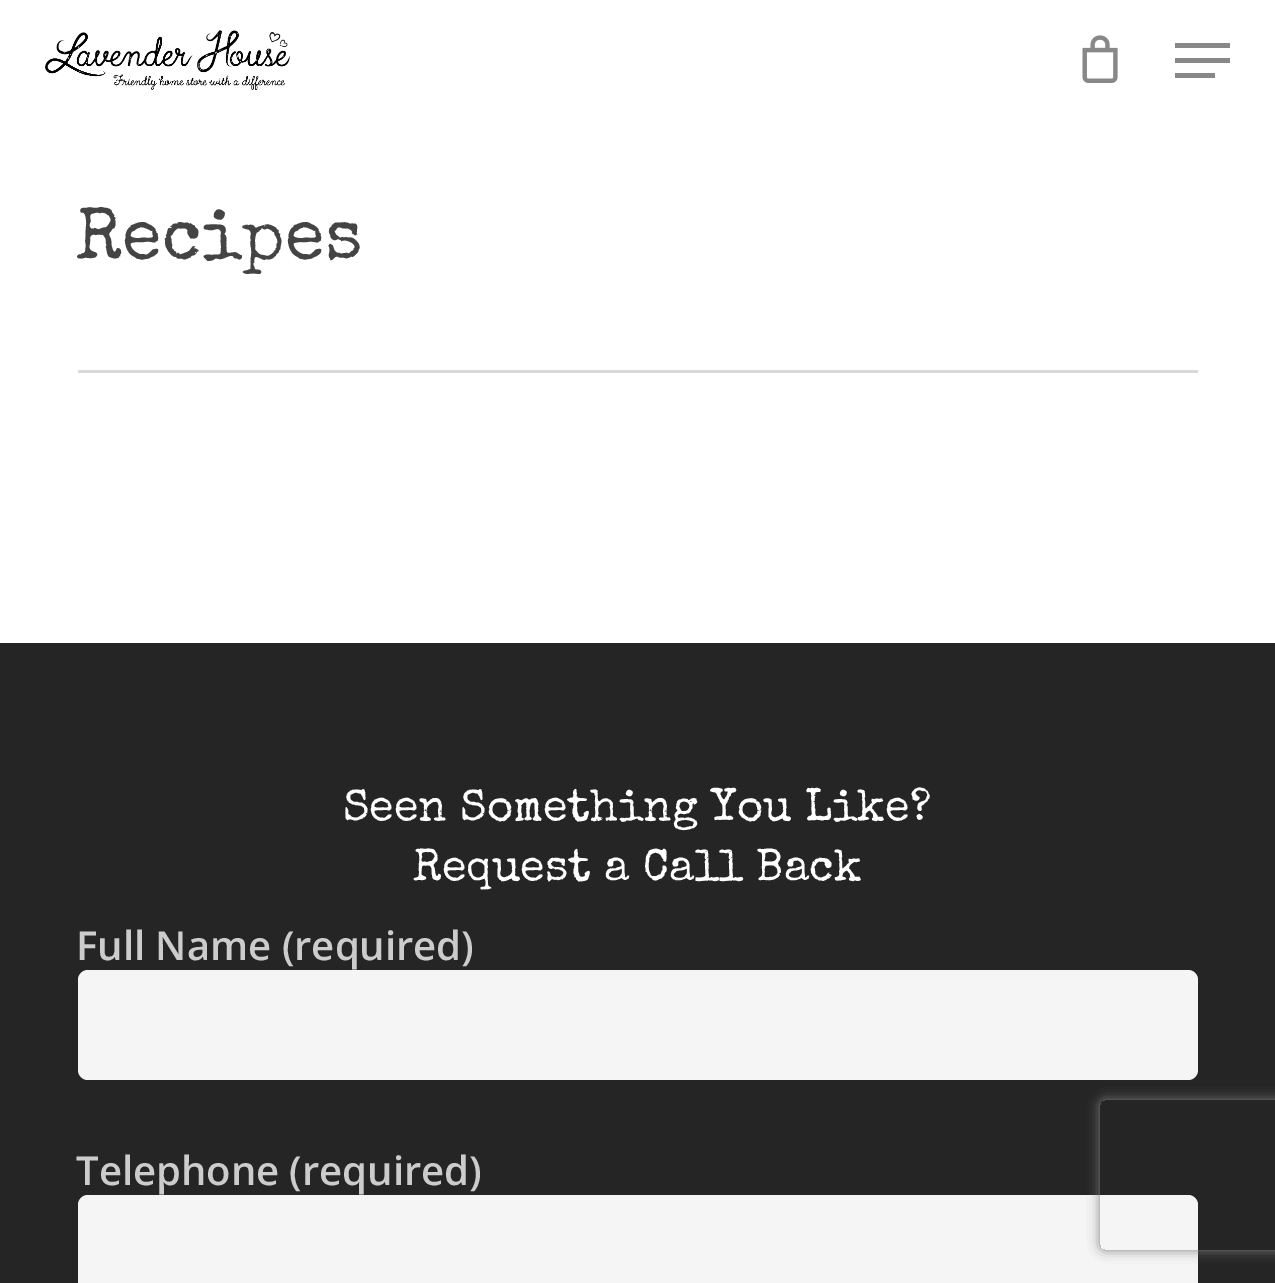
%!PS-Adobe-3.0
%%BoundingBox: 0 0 1275 1283
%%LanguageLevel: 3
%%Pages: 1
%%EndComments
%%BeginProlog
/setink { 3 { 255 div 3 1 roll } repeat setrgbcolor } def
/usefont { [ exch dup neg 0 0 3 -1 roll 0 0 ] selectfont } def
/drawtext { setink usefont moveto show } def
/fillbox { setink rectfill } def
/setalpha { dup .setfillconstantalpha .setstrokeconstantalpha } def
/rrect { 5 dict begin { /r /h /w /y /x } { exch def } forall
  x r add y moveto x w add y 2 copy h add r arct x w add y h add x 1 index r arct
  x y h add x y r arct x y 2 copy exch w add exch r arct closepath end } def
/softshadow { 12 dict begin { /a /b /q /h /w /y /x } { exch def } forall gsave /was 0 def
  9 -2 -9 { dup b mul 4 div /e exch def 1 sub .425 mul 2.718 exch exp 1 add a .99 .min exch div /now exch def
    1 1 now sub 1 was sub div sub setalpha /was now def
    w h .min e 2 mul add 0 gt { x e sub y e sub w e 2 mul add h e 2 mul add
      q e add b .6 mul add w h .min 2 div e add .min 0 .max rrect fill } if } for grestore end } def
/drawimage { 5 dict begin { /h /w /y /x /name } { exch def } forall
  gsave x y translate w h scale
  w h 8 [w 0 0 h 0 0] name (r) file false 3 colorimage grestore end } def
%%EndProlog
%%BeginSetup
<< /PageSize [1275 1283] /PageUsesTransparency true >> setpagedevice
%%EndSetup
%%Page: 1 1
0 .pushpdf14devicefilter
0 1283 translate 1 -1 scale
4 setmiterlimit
0 0 1275 1283 255 255 255 fillbox
(assets/img1.rgb) 45 30 245 60 drawimage
(assets/img2.rgb) 1082 35 36 48 drawimage
1175 43 55 5 136 136 136 fillbox
1175 73 40 5 136 136 136 fillbox
1175 58 55 5 136 136 136 fillbox
78 370 1120 3 217 217 217 fillbox
(Recipes) 76 258 /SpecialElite-Regular 72.5 68 68 68 drawtext
0 643 1275 640 37 37 37 fillbox
(Seen Something You Like?) 343 820 /SpecialElite-Regular 45 255 255 255 drawtext
(Request a Call Back) 413 880 /SpecialElite-Regular 45 255 255 255 drawtext
(Full Name \(required\)) 76 960 /OpenSans-SemiBold 40 204 204 204 drawtext
245 245 245 setink
78 970 1120 110 10 rrect fill
(Telephone \(required\)) 76 1185 /OpenSans-SemiBold 40 204 204 204 drawtext
245 245 245 setink
78 1195 1120 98 10 rrect fill
gsave
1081 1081 moveto 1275 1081 lineto 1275 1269 lineto 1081 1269 lineto closepath 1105 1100 moveto 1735 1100 lineto 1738 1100 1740 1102 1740 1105 curveto 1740 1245 lineto 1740 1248 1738 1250 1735 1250 curveto 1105 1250 lineto 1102 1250 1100 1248 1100 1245 curveto 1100 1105 lineto 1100 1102 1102 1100 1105 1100 curveto closepath eoclip newpath
128 128 128 setink
1100 1100 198 150 5 6 1 softshadow
grestore
.poppdf14devicefilter showpage
%%EOF
